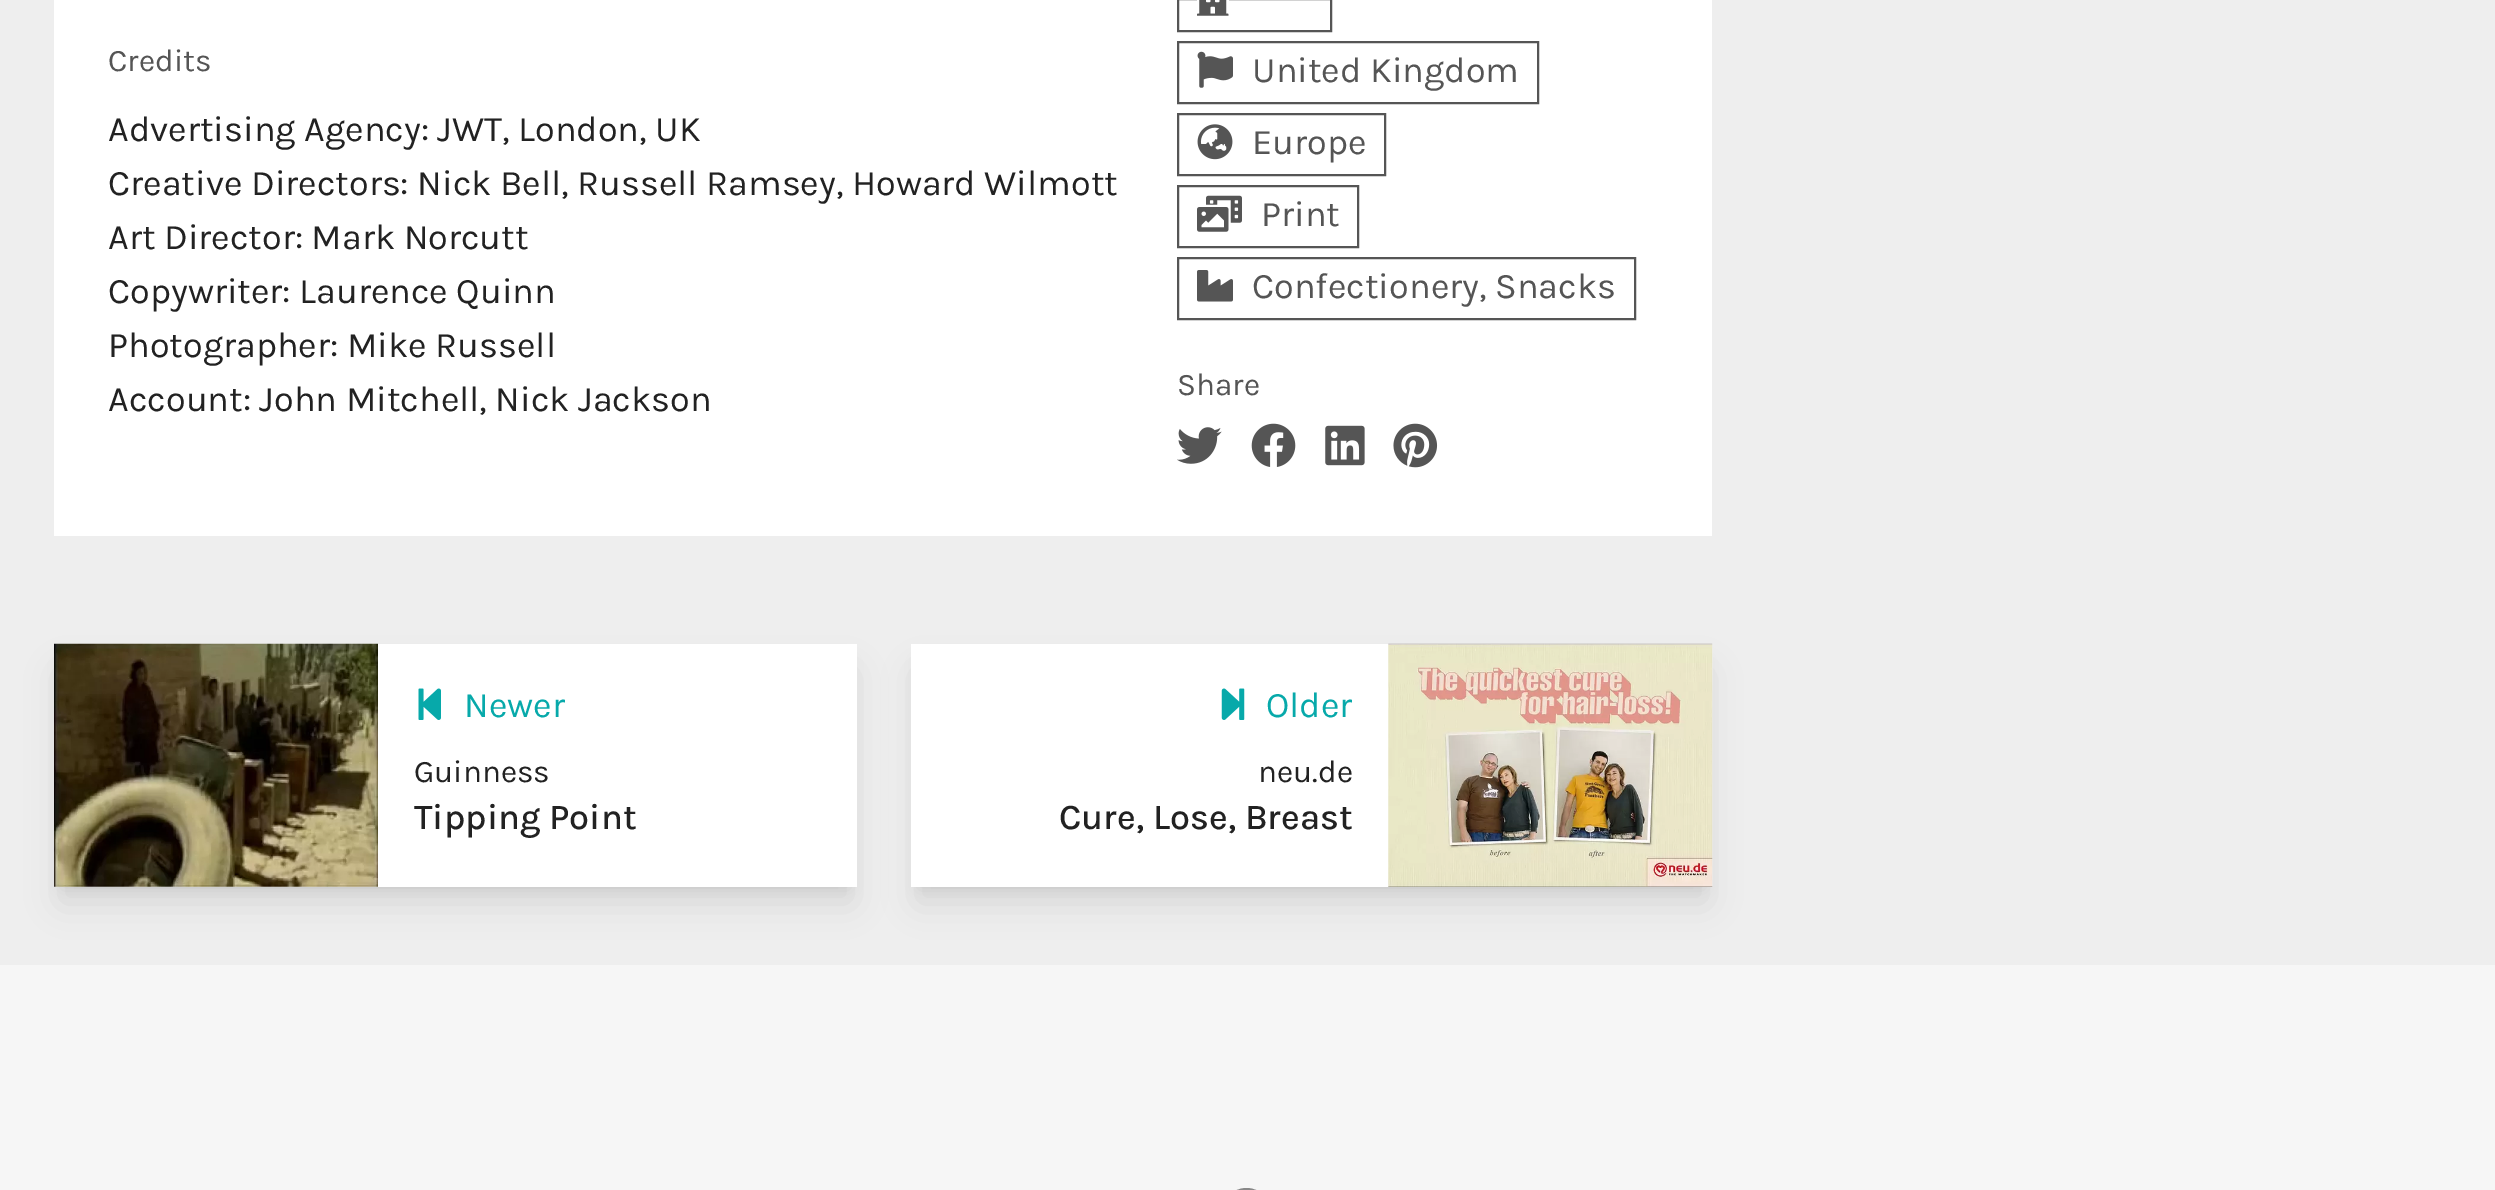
%!PS-Adobe-3.0
%%BoundingBox: 0 0 2495 1190
%%LanguageLevel: 3
%%Pages: 1
%%EndComments
%%BeginProlog
/setink { 3 { 255 div 3 1 roll } repeat setrgbcolor } def
/usefont { [ exch dup neg 0 0 3 -1 roll 0 0 ] selectfont } def
/drawtext { setink usefont moveto show } def
/fillbox { setink rectfill } def
/setalpha { dup .setfillconstantalpha .setstrokeconstantalpha } def
/rrect { 5 dict begin { /r /h /w /y /x } { exch def } forall
  x r add y moveto x w add y 2 copy h add r arct x w add y h add x 1 index r arct
  x y h add x y r arct x y 2 copy exch w add exch r arct closepath end } def
/softshadow { 12 dict begin { /a /b /q /h /w /y /x } { exch def } forall gsave /was 0 def
  9 -2 -9 { dup b mul 4 div /e exch def 1 sub .425 mul 2.718 exch exp 1 add a .99 .min exch div /now exch def
    1 1 now sub 1 was sub div sub setalpha /was now def
    w h .min e 2 mul add 0 gt { x e sub y e sub w e 2 mul add h e 2 mul add
      q e add b .6 mul add w h .min 2 div e add .min 0 .max rrect fill } if } for grestore end } def
/drawimage { 5 dict begin { /h /w /y /x /name } { exch def } forall
  gsave x y translate w h scale
  w h 8 [w 0 0 h 0 0] name (r) file false 3 colorimage grestore end } def
%%EndProlog
%%BeginSetup
<< /PageSize [2495 1190] /PageUsesTransparency true >> setpagedevice
%%EndSetup
%%Page: 1 1
0 .pushpdf14devicefilter
0 1190 translate 1 -1 scale
4 setmiterlimit
0 0 2495 1190 238 238 238 fillbox
0 965 2495 225 246 246 246 fillbox
54 0 1658 536 255 255 255 fillbox
(Credits) 108 71 /Karla-Regular 31.5 85 85 85 drawtext
(Advertising Agency: JWT, London, UK) 108 141 /Karla-Regular 36 34 34 34 drawtext
(Creative Directors: Nick Bell, Russell Ramsey, Howard Wilmott) 108 195 /Karla-Regular 36 34 34 34 drawtext
(Art Director: Mark Norcutt) 108 249 /Karla-Regular 36 34 34 34 drawtext
(Copywriter: Laurence Quinn) 108 303 /Karla-Regular 36 34 34 34 drawtext
(Photographer: Mike Russell) 108 357 /Karla-Regular 36 34 34 34 drawtext
(Account: John Mitchell, Nick Jackson) 108 411 /Karla-Regular 36 34 34 34 drawtext
85 85 85 setink
2 setlinewidth
1178 -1 153 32 rectstroke
(assets/img1.rgb) 1197 0 32 16 drawimage
1178 42 360 61 rectstroke
(assets/img2.rgb) 1197 51 36 37 drawimage
(United Kingdom) 1252 82 /Karla-Regular 36 85 85 85 drawtext
1178 114 207 61 rectstroke
(assets/img3.rgb) 1197 124 36 36 drawimage
(Europe) 1252 154 /Karla-Regular 36 85 85 85 drawtext
1178 186 180 61 rectstroke
(assets/img4.rgb) 1197 195 45 37 drawimage
(Print) 1261 226 /Karla-Regular 36 85 85 85 drawtext
1178 258 457 61 rectstroke
(assets/img5.rgb) 1197 270 36 32 drawimage
(Confectionery, Snacks) 1252 298 /Karla-Regular 36 85 85 85 drawtext
(Share) 1177 395 /Karla-Regular 31.5 85 85 85 drawtext
(assets/img6.rgb) 1177 427 45 37 drawimage
(assets/img7.rgb) 1251 423 45 44 drawimage
(assets/img8.rgb) 1325 425 40 41 drawimage
(assets/img9.rgb) 1393 423 45 45 drawimage
0 0 0 setink
63 662 785 225 0 7 0.1 softshadow
61 673 790 229 0 17 0.1 softshadow
54 644 803 243 255 255 255 fillbox
(assets/img10.rgb) 54 643 324 244 drawimage
(assets/img11.rgb) 418 688 23 32 drawimage
(Newer) 464 717 /Karla-Regular 36 7 169 170 drawtext
(Guinness) 414 782 /Karla-Regular 31.5 34 34 34 drawtext
(Tipping Point) 414 829 /Karla-Medium 36 34 34 34 drawtext
0 0 0 setink
920 662 783 225 0 7 0.1 softshadow
918 673 788 229 0 17 0.1 softshadow
911 644 801 243 255 255 255 fillbox
(assets/img12.rgb) 1221 688 24 32 drawimage
(Older) 1266 717 /Karla-Regular 36 7 169 170 drawtext
(neu.de) 1258 782 /Karla-Regular 31.5 34 34 34 drawtext
(Cure, Lose, Breast) 1059 829 /Karla-Medium 36 34 34 34 drawtext
(assets/img13.rgb) 1388 643 325 244 drawimage
136 136 136 setink
1223 1189 47 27 23.5 rrect stroke
.poppdf14devicefilter showpage
%%EOF
